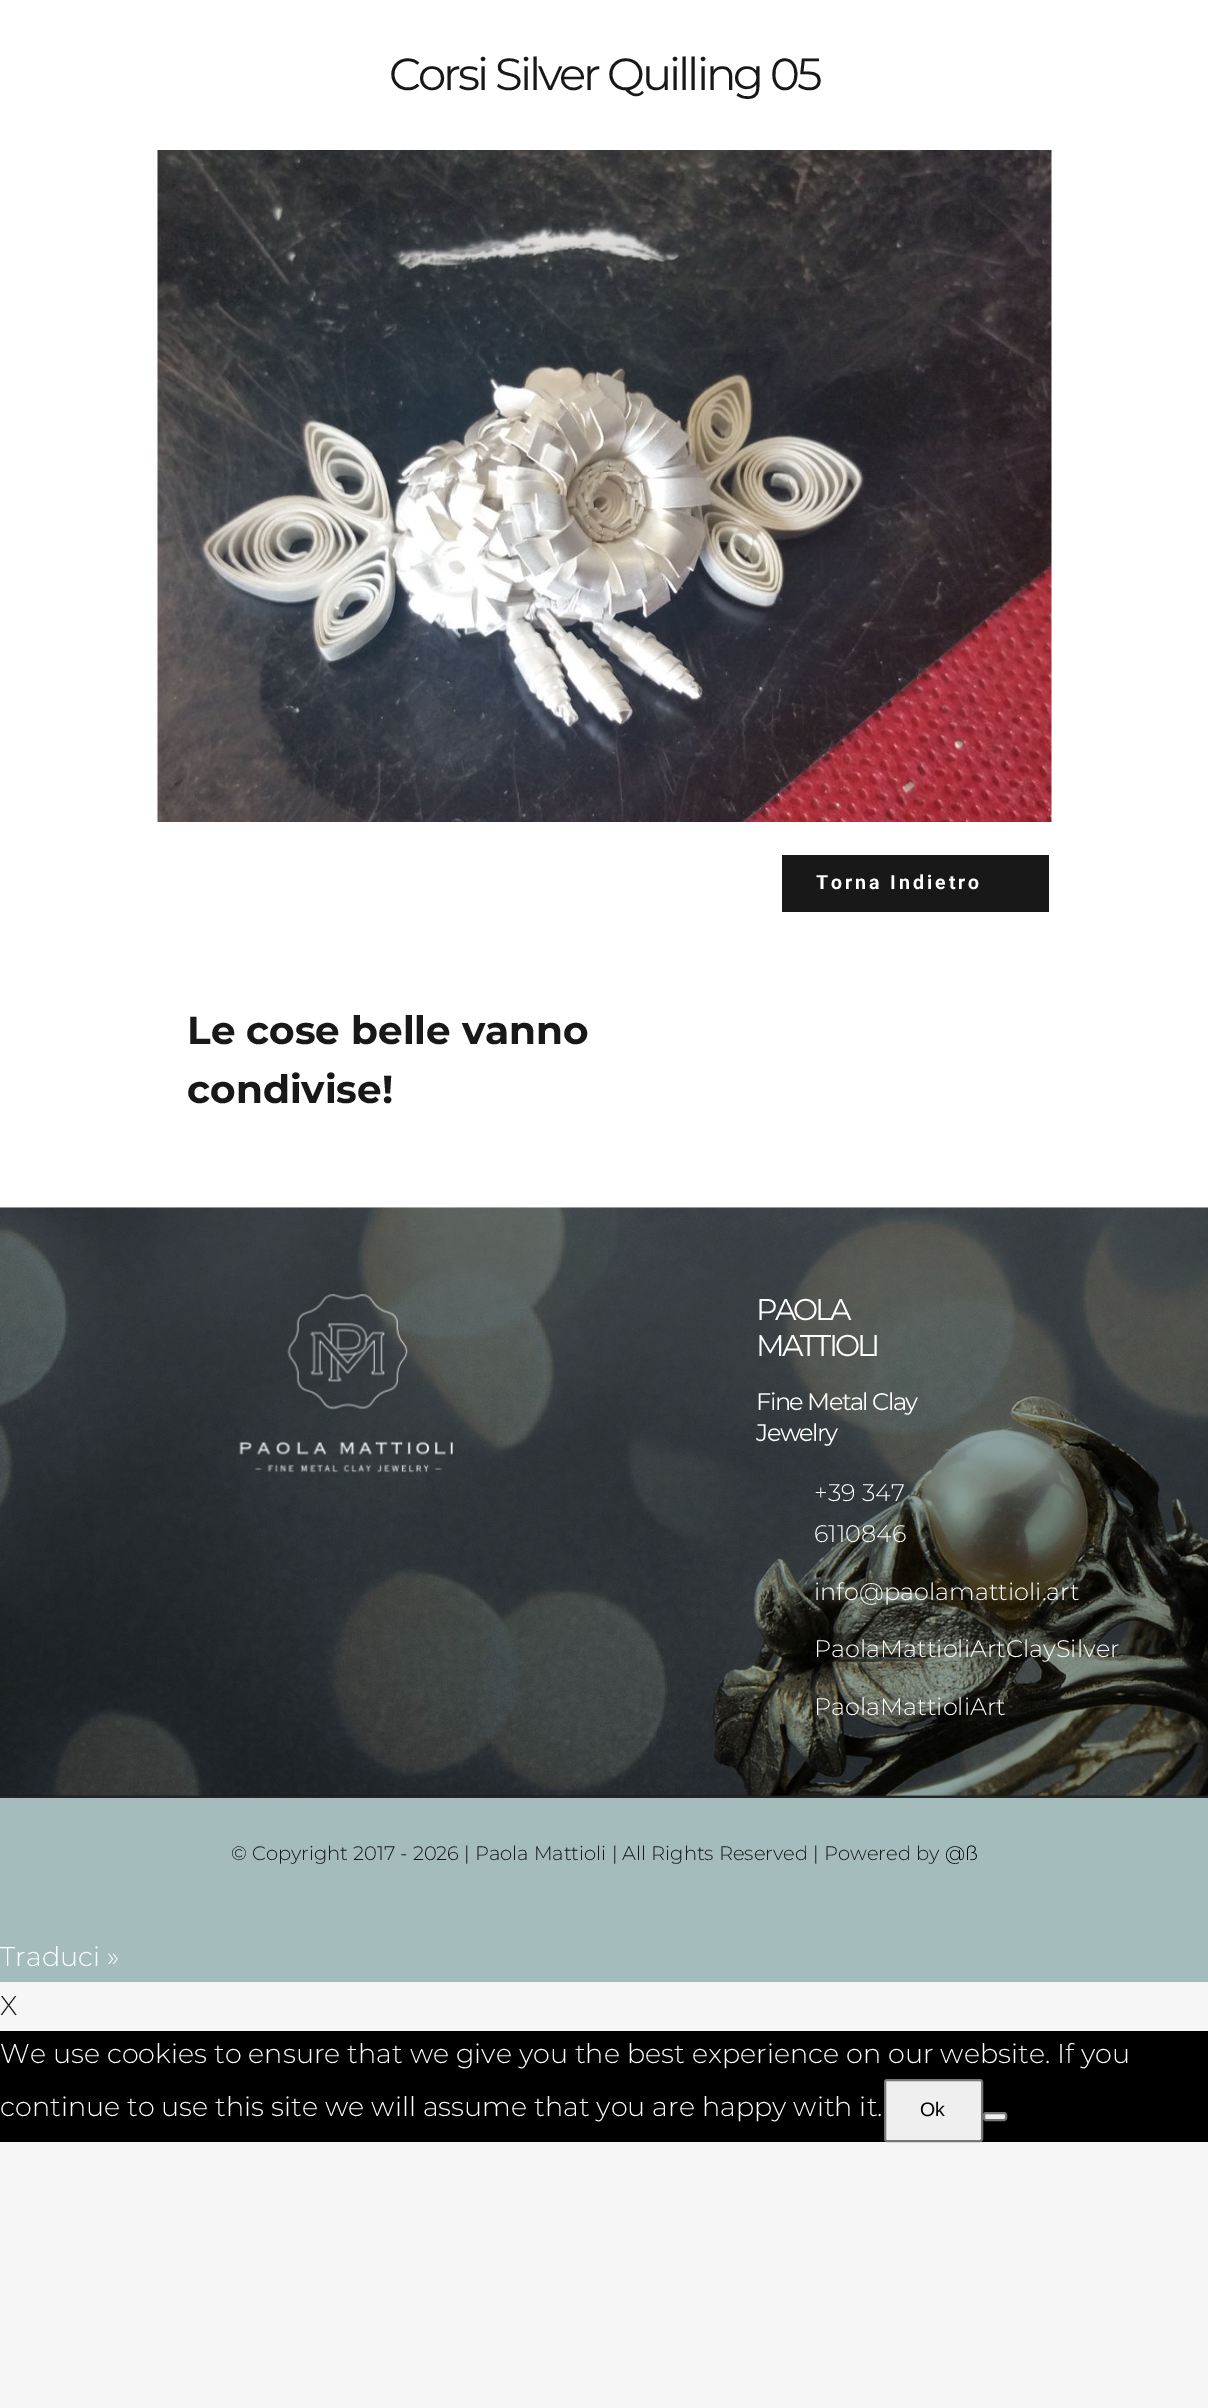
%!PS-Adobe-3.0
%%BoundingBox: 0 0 1208 2408
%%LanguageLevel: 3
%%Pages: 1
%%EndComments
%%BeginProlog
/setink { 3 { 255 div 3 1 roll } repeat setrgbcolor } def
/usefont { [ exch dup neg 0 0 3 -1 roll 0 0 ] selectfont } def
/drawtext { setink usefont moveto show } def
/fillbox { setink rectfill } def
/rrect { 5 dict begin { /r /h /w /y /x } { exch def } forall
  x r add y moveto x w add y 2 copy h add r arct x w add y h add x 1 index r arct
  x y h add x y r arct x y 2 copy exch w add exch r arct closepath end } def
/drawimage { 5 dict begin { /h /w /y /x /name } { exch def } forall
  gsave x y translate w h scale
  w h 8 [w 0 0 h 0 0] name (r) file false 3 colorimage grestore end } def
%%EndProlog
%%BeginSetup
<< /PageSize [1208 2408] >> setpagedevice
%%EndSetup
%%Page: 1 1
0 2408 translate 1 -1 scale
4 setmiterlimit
0 0 1208 2408 246 246 246 fillbox
0 0 1208 1208 255 255 255 fillbox
/Montserrat-Regular 45 usefont
24 24 24 setink
389 90 moveto -3 0 (Corsi Silver Quilling 05) ashow
(assets/img1.rgb) 157 150 895 672 drawimage
782 855 267 57 24 24 24 fillbox
/Roboto-Bold 19.5 usefont
255 255 255 setink
816 889 moveto 3 0 (Torna Indietro) ashow
(Le cose belle vanno) 187 1044 /Montserrat-Bold 39 24 24 24 drawtext
(condivise!) 187 1103 /Montserrat-Bold 39 24 24 24 drawtext
0 1795 1208 1 24 24 24 fillbox
(assets/img2.rgb) 0 1207 1208 589 drawimage
(assets/img3.rgb) 239 1294 214 179 drawimage
/Montserrat-Regular 30 usefont
255 255 255 setink
756 1320 moveto -3 0 (PAOLA) ashow
756 1356 moveto -3 0 (MATTIOLI) ashow
/Montserrat-Regular 24 usefont
756 1410 moveto -1.5 0 (Fine Metal Clay) ashow
756 1441 moveto -1.5 0 (Jewelry) ashow
(+39 347) 814 1501 /Montserrat-Light 24 255 255 255 drawtext
(6110846) 814 1542 /Montserrat-Light 24 255 255 255 drawtext
(info@paolamattioli.art) 814 1600 /Montserrat-Light 24 255 255 255 drawtext
(PaolaMattioliArtClaySilver) 814 1657 /Montserrat-Light 24 255 255 255 drawtext
(PaolaMattioliArt) 814 1715 /Montserrat-Light 24 255 255 255 drawtext
0 1796 1208 2 37 37 37 fillbox
0 1798 1208 184 164 188 187 fillbox
(© Copyright 2017 - 2026 | Paola Mattioli | All Rights Reserved | Powered by) 231 1860 /Montserrat-Light 19.5 24 24 24 drawtext
(@ß) 945 1860 /Montserrat-Light 19.5 0 0 0 drawtext
(Traduci ») 0 1966 /Montserrat-Light 27 255 255 255 drawtext
(X) 0 2015 /Montserrat-Light 27 24 24 24 drawtext
0 2031 1208 111 0 0 0 fillbox
(We use cookies to ensure that we give you the best experience on our website. If you) 0 2063 /Montserrat-Light 27 255 255 255 drawtext
(continue to use this site we will assume that you are happy with it.) 0 2116 /Montserrat-Light 27 255 255 255 drawtext
239 239 239 setink
885 2080 97 61 2 rrect gsave fill grestore
118 118 118 setink
2 setlinewidth
stroke
(Ok) 920 2116 /LiberationSans-Regular 19.5 0 0 0 drawtext
239 239 239 setink
984 2113 22 7 2 rrect gsave fill grestore
118 118 118 setink
stroke
showpage
%%EOF
